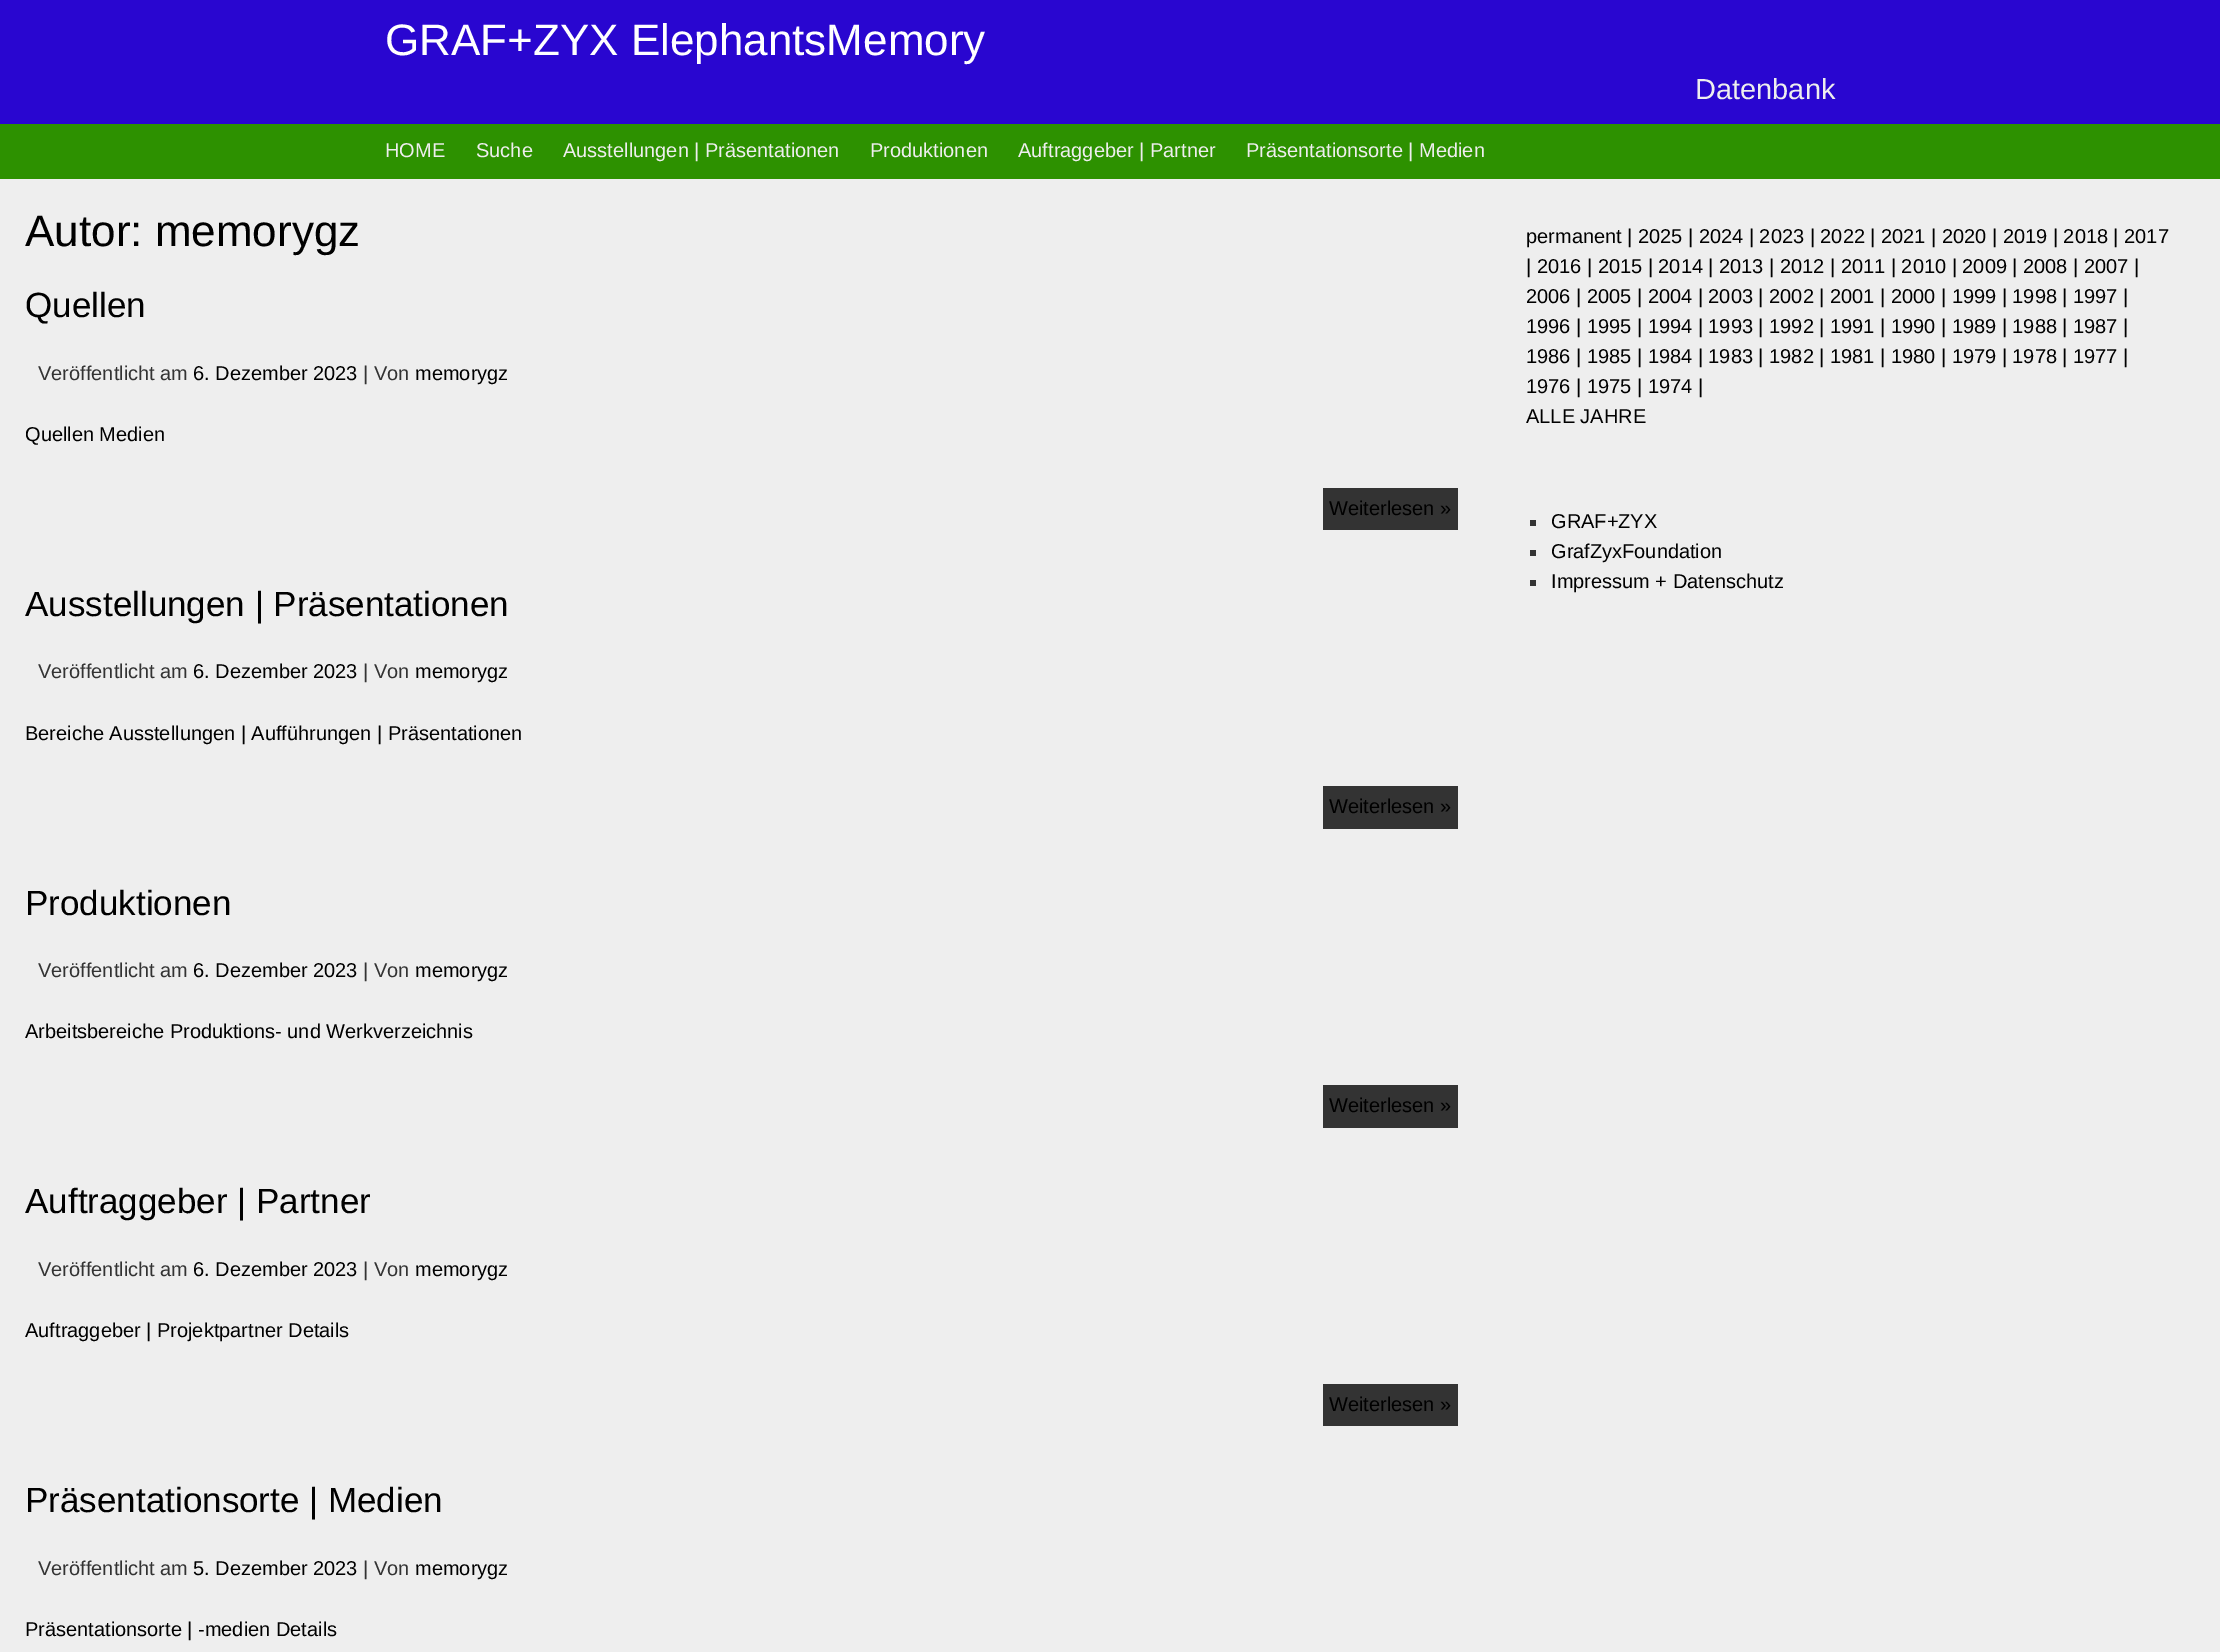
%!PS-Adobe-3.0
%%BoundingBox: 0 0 2220 1652
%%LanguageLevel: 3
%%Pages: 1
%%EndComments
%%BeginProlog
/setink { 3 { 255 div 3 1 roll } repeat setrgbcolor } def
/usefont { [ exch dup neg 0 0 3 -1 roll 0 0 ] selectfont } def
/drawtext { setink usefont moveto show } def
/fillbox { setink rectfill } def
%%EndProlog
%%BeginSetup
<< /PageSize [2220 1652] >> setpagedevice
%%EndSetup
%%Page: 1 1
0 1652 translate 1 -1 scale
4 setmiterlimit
0 0 2220 1652 41 6 208 fillbox
(GRAF+ZYX ElephantsMemory) 385 55 /LiberationSans-Regular 44 255 255 255 drawtext
(Datenbank) 1695 99 /LiberationSans-Regular 29 238 238 238 drawtext
0 124 2220 55 45 145 0 fillbox
(HOME) 385 157 /LiberationSans-Regular 20 238 238 238 drawtext
(Suche) 476 157 /LiberationSans-Regular 20 238 238 238 drawtext
(Ausstellungen | Präsentationen) 563 157 /LiberationSans-Regular 20 238 238 238 drawtext
(Produktionen) 870 157 /LiberationSans-Regular 20 238 238 238 drawtext
(Auftraggeber | Partner) 1018 157 /LiberationSans-Regular 20 238 238 238 drawtext
(Präsentationsorte | Medien) 1246 157 /LiberationSans-Regular 20 238 238 238 drawtext
0 179 2220 1473 238 238 238 fillbox
(Autor: memorygz) 25 246 /LiberationSans-Regular 44 0 0 0 drawtext
(Quellen) 25 317 /LiberationSans-Regular 35 0 0 0 drawtext
(Veröffentlicht am) 38 380 /LiberationSans-Regular 20 51 51 51 drawtext
(6. Dezember 2023) 193 380 /LiberationSans-Regular 20 0 0 0 drawtext
(| Von) 363 380 /LiberationSans-Regular 20 51 51 51 drawtext
(memorygz) 415 380 /LiberationSans-Regular 20 0 0 0 drawtext
(Quellen Medien) 25 441 /LiberationSans-Regular 20 0 0 0 drawtext
1323 488 135 42 51 51 51 fillbox
(Weiterlesen ») 1329 515 /LiberationSans-Regular 20 0 0 0 drawtext
(Ausstellungen | Präsentationen) 25 616 /LiberationSans-Regular 35 0 0 0 drawtext
(Veröffentlicht am) 38 678 /LiberationSans-Regular 20 51 51 51 drawtext
(6. Dezember 2023) 193 678 /LiberationSans-Regular 20 0 0 0 drawtext
(| Von) 363 678 /LiberationSans-Regular 20 51 51 51 drawtext
(memorygz) 415 678 /LiberationSans-Regular 20 0 0 0 drawtext
(Bereiche Ausstellungen | Aufführungen | Präsentationen) 25 740 /LiberationSans-Regular 20 0 0 0 drawtext
1323 786 135 43 51 51 51 fillbox
(Weiterlesen ») 1329 813 /LiberationSans-Regular 20 0 0 0 drawtext
(Produktionen) 25 915 /LiberationSans-Regular 35 0 0 0 drawtext
(Veröffentlicht am) 38 977 /LiberationSans-Regular 20 51 51 51 drawtext
(6. Dezember 2023) 193 977 /LiberationSans-Regular 20 0 0 0 drawtext
(| Von) 363 977 /LiberationSans-Regular 20 51 51 51 drawtext
(memorygz) 415 977 /LiberationSans-Regular 20 0 0 0 drawtext
(Arbeitsbereiche Produktions- und Werkverzeichnis) 25 1038 /LiberationSans-Regular 20 0 0 0 drawtext
1323 1085 135 43 51 51 51 fillbox
(Weiterlesen ») 1329 1112 /LiberationSans-Regular 20 0 0 0 drawtext
(Auftraggeber | Partner) 25 1213 /LiberationSans-Regular 35 0 0 0 drawtext
(Veröffentlicht am) 38 1276 /LiberationSans-Regular 20 51 51 51 drawtext
(6. Dezember 2023) 193 1276 /LiberationSans-Regular 20 0 0 0 drawtext
(| Von) 363 1276 /LiberationSans-Regular 20 51 51 51 drawtext
(memorygz) 415 1276 /LiberationSans-Regular 20 0 0 0 drawtext
(Auftraggeber | Projektpartner Details) 25 1337 /LiberationSans-Regular 20 0 0 0 drawtext
1323 1384 135 42 51 51 51 fillbox
(Weiterlesen ») 1329 1411 /LiberationSans-Regular 20 0 0 0 drawtext
(Präsentationsorte | Medien) 25 1512 /LiberationSans-Regular 35 0 0 0 drawtext
(Veröffentlicht am) 38 1575 /LiberationSans-Regular 20 51 51 51 drawtext
(5. Dezember 2023) 193 1575 /LiberationSans-Regular 20 0 0 0 drawtext
(| Von) 363 1575 /LiberationSans-Regular 20 51 51 51 drawtext
(memorygz) 415 1575 /LiberationSans-Regular 20 0 0 0 drawtext
(Präsentationsorte | -medien Details) 25 1636 /LiberationSans-Regular 20 0 0 0 drawtext
(permanent | 2025 | 2024 | 2023 | 2022 | 2021 | 2020 | 2019 | 2018 | 2017) 1526 243 /LiberationSans-Regular 20 0 0 0 drawtext
(| 2016 | 2015 | 2014 | 2013 | 2012 | 2011 | 2010 | 2009 | 2008 | 2007 |) 1526 273 /LiberationSans-Regular 20 0 0 0 drawtext
(2006 | 2005 | 2004 | 2003 | 2002 | 2001 | 2000 | 1999 | 1998 | 1997 |) 1526 303 /LiberationSans-Regular 20 0 0 0 drawtext
(1996 | 1995 | 1994 | 1993 | 1992 | 1991 | 1990 | 1989 | 1988 | 1987 |) 1526 333 /LiberationSans-Regular 20 0 0 0 drawtext
(1986 | 1985 | 1984 | 1983 | 1982 | 1981 | 1980 | 1979 | 1978 | 1977 |) 1526 363 /LiberationSans-Regular 20 0 0 0 drawtext
(1976 | 1975 | 1974 |) 1526 393 /LiberationSans-Regular 20 0 0 0 drawtext
(ALLE JAHRE) 1526 423 /LiberationSans-Regular 20 0 0 0 drawtext
1530 520 6 6 51 51 51 fillbox
(GRAF+ZYX) 1551 528 /LiberationSans-Regular 20 0 0 0 drawtext
1530 550 6 6 51 51 51 fillbox
(GrafZyxFoundation) 1551 558 /LiberationSans-Regular 20 0 0 0 drawtext
1530 580 6 6 51 51 51 fillbox
(Impressum + Datenschutz) 1551 588 /LiberationSans-Regular 20 0 0 0 drawtext
showpage
%%EOF
